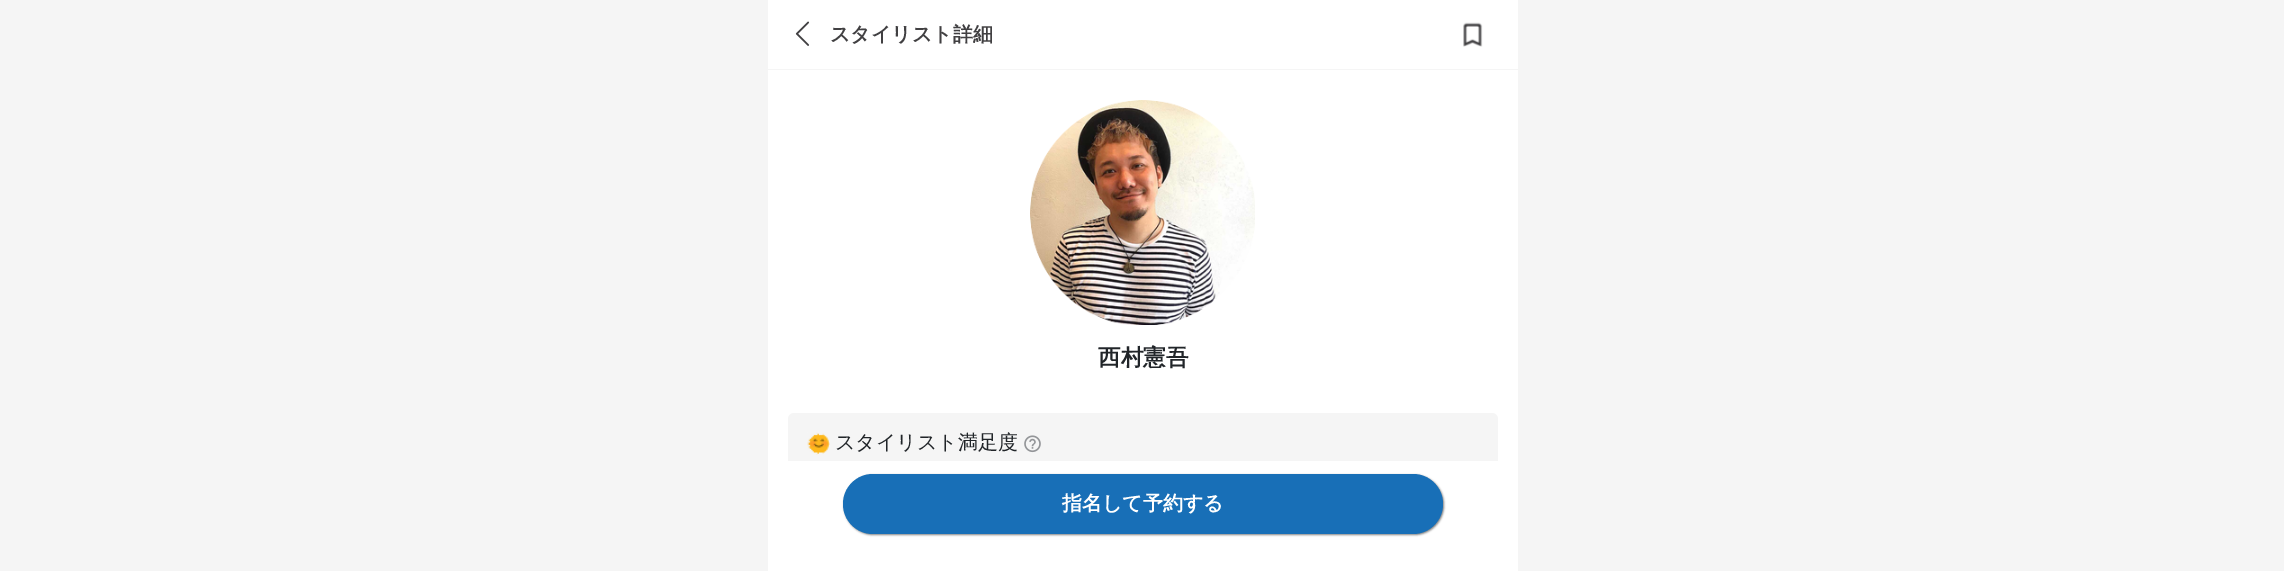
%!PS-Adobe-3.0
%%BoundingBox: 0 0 2284 571
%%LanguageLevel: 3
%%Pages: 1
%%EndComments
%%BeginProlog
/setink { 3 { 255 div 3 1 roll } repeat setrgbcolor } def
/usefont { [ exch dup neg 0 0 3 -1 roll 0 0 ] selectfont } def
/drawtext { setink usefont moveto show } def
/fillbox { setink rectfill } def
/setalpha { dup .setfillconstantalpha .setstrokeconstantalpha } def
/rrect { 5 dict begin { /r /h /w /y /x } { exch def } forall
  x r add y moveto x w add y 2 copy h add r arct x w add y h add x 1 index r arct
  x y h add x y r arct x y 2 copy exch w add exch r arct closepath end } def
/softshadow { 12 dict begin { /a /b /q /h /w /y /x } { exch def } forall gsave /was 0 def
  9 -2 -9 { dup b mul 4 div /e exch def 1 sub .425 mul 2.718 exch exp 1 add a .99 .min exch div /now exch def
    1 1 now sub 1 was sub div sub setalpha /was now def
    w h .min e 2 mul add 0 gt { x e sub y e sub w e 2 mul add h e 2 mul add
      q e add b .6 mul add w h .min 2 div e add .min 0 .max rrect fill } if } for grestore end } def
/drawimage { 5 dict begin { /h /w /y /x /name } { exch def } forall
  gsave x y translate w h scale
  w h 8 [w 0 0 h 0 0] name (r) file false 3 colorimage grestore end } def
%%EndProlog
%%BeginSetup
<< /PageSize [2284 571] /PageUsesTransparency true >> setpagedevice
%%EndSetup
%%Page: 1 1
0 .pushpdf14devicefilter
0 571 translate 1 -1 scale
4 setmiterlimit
0 0 2284 571 245 245 245 fillbox
768 0 750 69 255 255 255 fillbox
(assets/img1.rgb) 795 21 15 25 drawimage
(スタイリスト詳細) 830 41 /WenQuanYiZenHei-Bold 20 65 64 66 drawtext
(assets/img2.rgb) 1463 22 20 25 drawimage
768 70 750 391 255 255 255 fillbox
(assets/img3.rgb) 1030 100 225 225 drawimage
(西村憲吾) 1098 365 /WenQuanYiZenHei-Bold 22.5 33 37 41 drawtext
245 245 245 setink
788 413 710 92 6 rrect fill
(assets/img4.rgb) 807 432 23 23 drawimage
(スタイリスト満足度) 835 449 /WenQuanYiZenHei-Medium 20 33 37 41 drawtext
(assets/img5.rgb) 1024 435 17 18 drawimage
768 461 750 110 255 255 255 fillbox
128 128 128 setink
844 475 600 60 30 1 1 softshadow
24 111 183 setink
843 474 600 60 30 rrect fill
(指名して予約する) 1062 510 /WenQuanYiZenHei-Bold 20 255 255 255 drawtext
.poppdf14devicefilter showpage
%%EOF
